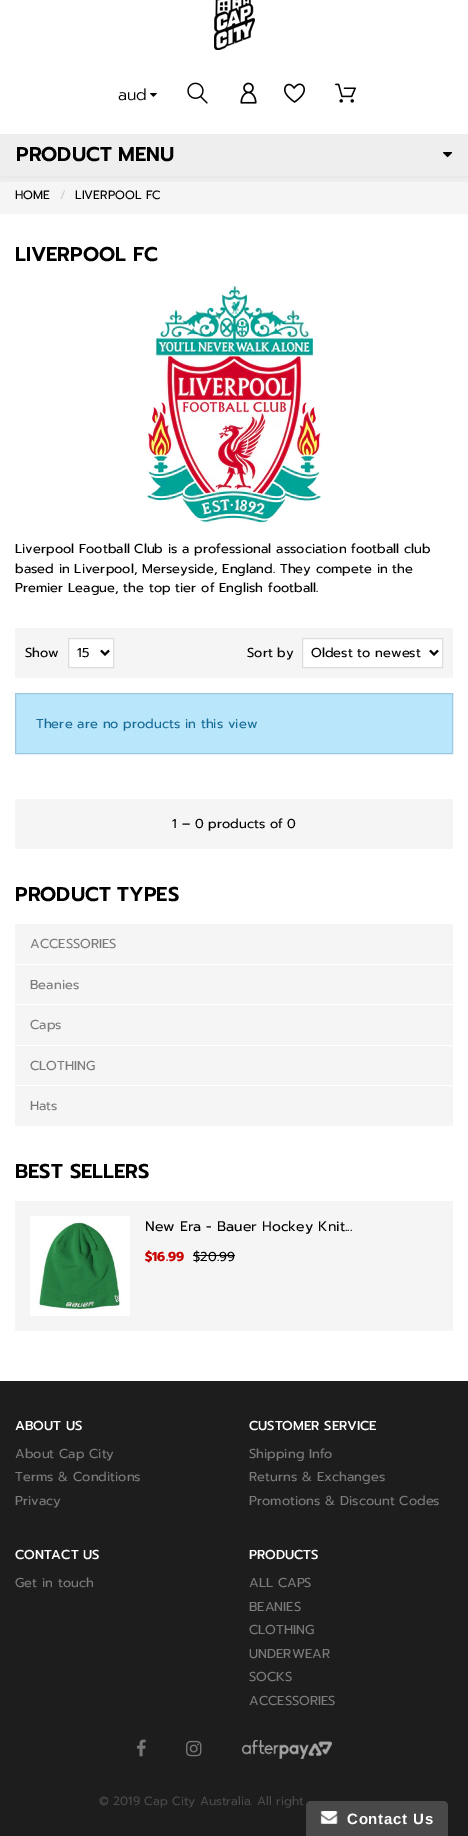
%!PS-Adobe-3.0
%%BoundingBox: 0 0 468 1836
%%LanguageLevel: 3
%%Pages: 1
%%EndComments
%%BeginProlog
/setink { 3 { 255 div 3 1 roll } repeat setrgbcolor } def
/usefont { [ exch dup neg 0 0 3 -1 roll 0 0 ] selectfont } def
/drawtext { setink usefont moveto show } def
/fillbox { setink rectfill } def
/setalpha { dup .setfillconstantalpha .setstrokeconstantalpha } def
/rrect { 5 dict begin { /r /h /w /y /x } { exch def } forall
  x r add y moveto x w add y 2 copy h add r arct x w add y h add x 1 index r arct
  x y h add x y r arct x y 2 copy exch w add exch r arct closepath end } def
/softshadow { 12 dict begin { /a /b /q /h /w /y /x } { exch def } forall gsave /was 0 def
  9 -2 -9 { dup b mul 4 div /e exch def 1 sub .425 mul 2.718 exch exp 1 add a .99 .min exch div /now exch def
    1 1 now sub 1 was sub div sub setalpha /was now def
    w h .min e 2 mul add 0 gt { x e sub y e sub w e 2 mul add h e 2 mul add
      q e add b .6 mul add w h .min 2 div e add .min 0 .max rrect fill } if } for grestore end } def
/drawimage { 5 dict begin { /h /w /y /x /name } { exch def } forall
  gsave x y translate w h scale
  w h 8 [w 0 0 h 0 0] name (r) file false 3 colorimage grestore end } def
%%EndProlog
%%BeginSetup
<< /PageSize [468 1836] /PageUsesTransparency true >> setpagedevice
%%EndSetup
%%Page: 1 1
0 .pushpdf14devicefilter
0 1836 translate 1 -1 scale
4 setmiterlimit
0 0 468 1836 255 255 255 fillbox
0 176 468 38 245 245 245 fillbox
gsave
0 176 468 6 rectclip
0 0 0 setink
0 -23 468 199 0 7.5 0.1 softshadow
grestore
(assets/img1.rgb) 214 0 41 50 drawimage
(aud) 118 100 /Prompt-Light 16 0 0 0 drawtext
(assets/img2.rgb) 150 93 7 4 drawimage
(assets/img3.rgb) 187 82 21 22 drawimage
(assets/img4.rgb) 240 82 17 22 drawimage
(assets/img5.rgb) 284 83 21 20 drawimage
(assets/img6.rgb) 335 83 21 20 drawimage
0 134 468 42 238 238 238 fillbox
(PRODUCT MENU) 16 161 /Prompt-SemiBold 20 0 0 0 drawtext
(assets/img7.rgb) 443 152 10 6 drawimage
(HOME) 15 199 /Prompt-Regular 12 0 0 0 drawtext
(/) 60 199 /Prompt-Regular 12 204 204 204 drawtext
(LIVERPOOL FC) 75 199 /Prompt-Regular 12 0 0 0 drawtext
(LIVERPOOL FC) 15 261 /Prompt-SemiBold 20 0 0 0 drawtext
(assets/img8.rgb) 145 284 178 240 drawimage
(Liverpool Football Club is a professional association football club) 15 553 /Prompt-Regular 13 0 0 0 drawtext
(based in Liverpool, Merseyside, England. They compete in the) 15 573 /Prompt-Regular 13 0 0 0 drawtext
(Premier League, the top tier of English football.) 15 592 /Prompt-Regular 13 0 0 0 drawtext
15 628 438 50 245 245 245 fillbox
(Show) 25 657 /Prompt-Regular 13 0 0 0 drawtext
255 255 255 setink
68.5 638.5 moveto 113.5 638.5 lineto 113.5 667.5 lineto 68.5 667.5 lineto closepath gsave fill grestore
221 221 221 setink
stroke
0 0 0 setink
2 setlinewidth
101 650.5 moveto 105 654.5 lineto 109 650.5 lineto stroke
(15) 77 657 /Prompt-Regular 13 0 0 0 drawtext
(Sort by) 247 657 /Prompt-Regular 13 0 0 0 drawtext
255 255 255 setink
302.5 638.5 moveto 442.5 638.5 lineto 442.5 667.5 lineto 302.5 667.5 lineto closepath gsave fill grestore
221 221 221 setink
1 setlinewidth
stroke
0 0 0 setink
2 setlinewidth
430 650.5 moveto 434 654.5 lineto 438 650.5 lineto stroke
(Oldest to newest) 311 657 /Prompt-Regular 13 0 0 0 drawtext
186 230 252 setink
15.5 693.5 moveto 452.5 693.5 lineto 452.5 753.5 lineto 15.5 753.5 lineto closepath gsave fill grestore
156 200 222 setink
1 setlinewidth
stroke
(There are no products in this view) 36 728 /Prompt-Regular 13 22 107 150 drawtext
15 799 438 50 245 245 245 fillbox
(1 – 0 products of 0) 172 828 /Prompt-Regular 13 0 0 0 drawtext
(PRODUCT TYPES) 15 901 /Prompt-SemiBold 20 0 0 0 drawtext
15 924 438 202 245 245 245 fillbox
(ACCESSORIES) 30 948 /Prompt-Regular 13 123 123 123 drawtext
15 964 438 1 255 255 255 fillbox
(Beanies) 30 989 /Prompt-Regular 13 123 123 123 drawtext
15 1004 438 1 255 255 255 fillbox
(Caps) 30 1029 /Prompt-Regular 13 123 123 123 drawtext
15 1045 438 1 255 255 255 fillbox
(CLOTHING) 30 1070 /Prompt-Regular 13 123 123 123 drawtext
15 1085 438 1 255 255 255 fillbox
(Hats) 30 1110 /Prompt-Regular 13 123 123 123 drawtext
(BEST SELLERS) 15 1178 /Prompt-SemiBold 20 0 0 0 drawtext
15 1201 438 130 245 245 245 fillbox
(assets/img9.rgb) 30 1216 100 100 drawimage
(New Era - Bauer Hockey Knit...) 145 1231 /Prompt-Regular 14 0 0 0 drawtext
($16.99) 145 1261 /Prompt-Bold 13 201 0 0 drawtext
($20.99) 193 1261 /Prompt-Regular 13 0 0 0 drawtext
193 1255 42 1 0 0 0 fillbox
0 1381 468 455 29 29 29 fillbox
(ABOUT US) 15 1430 /Prompt-Medium 13 255 255 255 drawtext
(About Cap City) 15 1458 /Prompt-Regular 13 123 123 123 drawtext
(Terms & Conditions) 15 1481 /Prompt-Regular 13 123 123 123 drawtext
(Privacy) 15 1505 /Prompt-Regular 13 123 123 123 drawtext
(CUSTOMER SERVICE) 249 1430 /Prompt-Medium 13 255 255 255 drawtext
(Shipping Info) 249 1458 /Prompt-Regular 13 123 123 123 drawtext
(Returns & Exchanges) 249 1481 /Prompt-Regular 13 123 123 123 drawtext
(Promotions & Discount Codes) 249 1505 /Prompt-Regular 13 123 123 123 drawtext
(CONTACT US) 15 1559 /Prompt-Medium 13 255 255 255 drawtext
(Get in touch) 15 1587 /Prompt-Regular 13 123 123 123 drawtext
(PRODUCTS) 249 1559 /Prompt-Medium 13 255 255 255 drawtext
(ALL CAPS) 249 1587 /Prompt-Regular 13 123 123 123 drawtext
(BEANIES) 249 1611 /Prompt-Regular 13 123 123 123 drawtext
(CLOTHING) 249 1634 /Prompt-Regular 13 123 123 123 drawtext
(UNDERWEAR) 249 1658 /Prompt-Regular 13 123 123 123 drawtext
(SOCKS) 249 1681 /Prompt-Regular 13 123 123 123 drawtext
(ACCESSORIES) 249 1705 /Prompt-Regular 13 123 123 123 drawtext
(assets/img10.rgb) 137 1739 9 18 drawimage
(assets/img11.rgb) 186 1740 16 17 drawimage
(assets/img12.rgb) 242 1740 90 19 drawimage
(© 2019 Cap City Australia. All right) 99 1805 /Prompt-Regular 12 74 74 74 drawtext
73 73 73 setink
311 1801 moveto 443 1801 lineto 446 1801 448 1803 448 1806 curveto 448 1836 lineto 306 1836 lineto 306 1806 lineto 306 1803 308 1801 311 1801 curveto closepath fill
(assets/img13.rgb) 320 1811 18 13 drawimage
/LiberationSans-Bold 15 usefont
255 255 255 setink
347 1824 moveto 0.75 0 (Contact Us) ashow
.poppdf14devicefilter showpage
%%EOF
